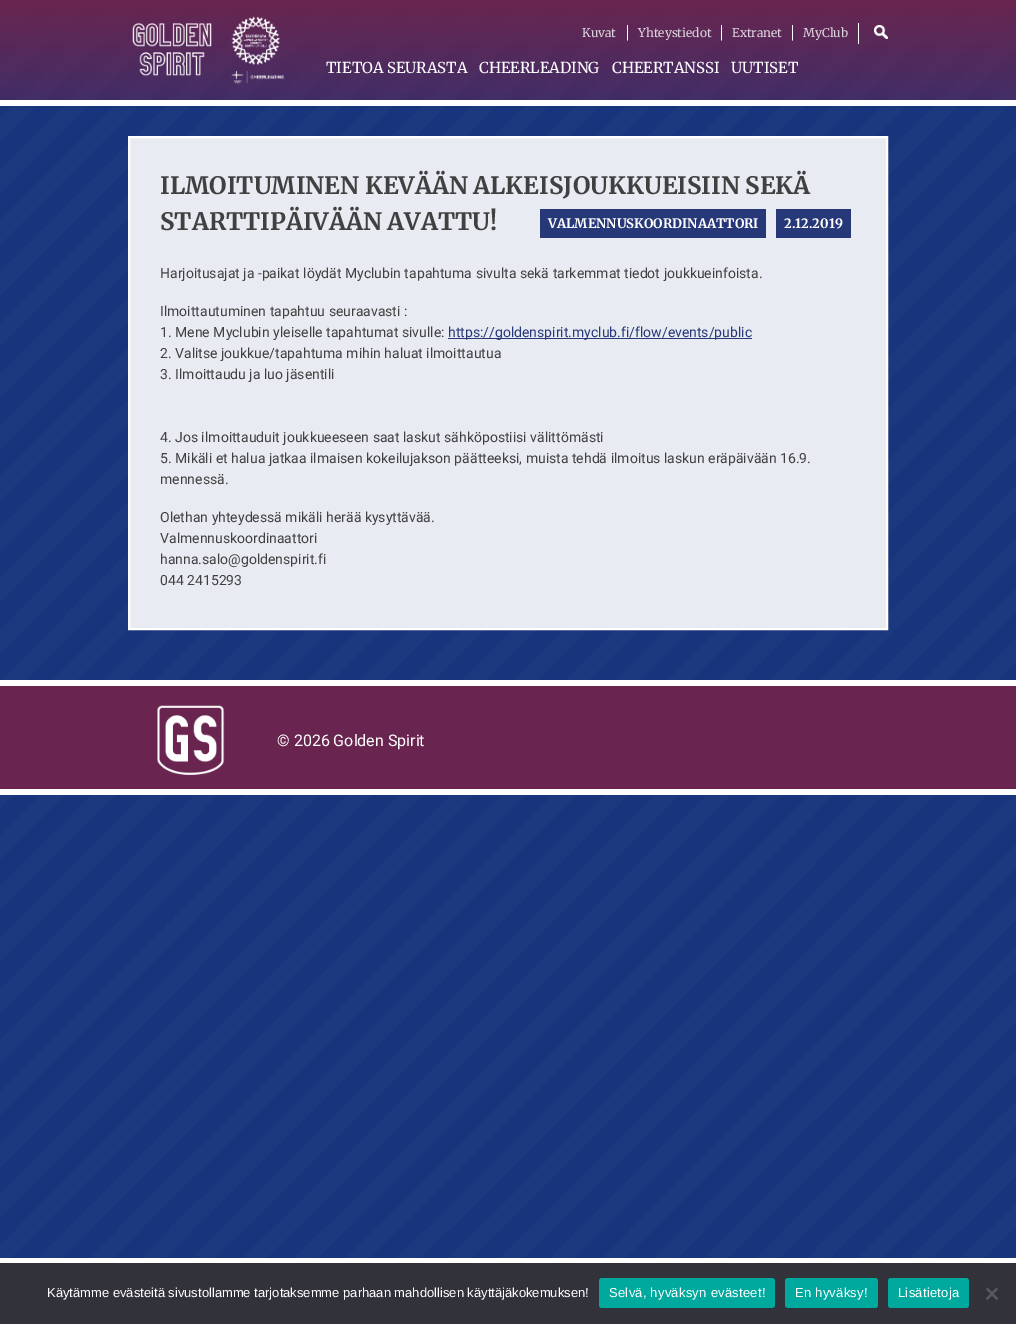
%!PS-Adobe-3.0
%%BoundingBox: 0 0 1016 1324
%%LanguageLevel: 3
%%Pages: 1
%%EndComments
%%BeginProlog
/setink { 3 { 255 div 3 1 roll } repeat setrgbcolor } def
/usefont { [ exch dup neg 0 0 3 -1 roll 0 0 ] selectfont } def
/drawtext { setink usefont moveto show } def
/fillbox { setink rectfill } def
/setalpha { dup .setfillconstantalpha .setstrokeconstantalpha } def
/rrect { 5 dict begin { /r /h /w /y /x } { exch def } forall
  x r add y moveto x w add y 2 copy h add r arct x w add y h add x 1 index r arct
  x y h add x y r arct x y 2 copy exch w add exch r arct closepath end } def
/drawimage { 5 dict begin { /h /w /y /x /name } { exch def } forall
  gsave x y translate w h scale
  w h 8 [w 0 0 h 0 0] name (r) file false 3 colorimage grestore end } def
%%EndProlog
%%BeginSetup
<< /PageSize [1016 1324] /PageUsesTransparency true >> setpagedevice
%%EndSetup
%%Page: 1 1
0 .pushpdf14devicefilter
0 1324 translate 1 -1 scale
4 setmiterlimit
0 0 1016 1324 255 255 255 fillbox
(assets/img1.rgb) 0 0 1016 1258 drawimage
0 100 1016 6 255 255 255 fillbox
(assets/img2.rgb) 132 23 80 53 drawimage
(assets/img3.rgb) 231 16 54 68 drawimage
(Kuvat) 582 37 /Merriweather-Regular 12 222 212 221 drawtext
(Yhteystiedot) 638 37 /Merriweather-Regular 12 222 212 221 drawtext
255 255 255 setink
627 41 moveto 627 25 lineto 628 25 lineto 628 40 lineto closepath fill
(Extranet) 732 37 /Merriweather-Regular 12 222 212 221 drawtext
255 255 255 setink
721 41 moveto 721 25 lineto 722 25 lineto 722 40 lineto closepath fill
(MyClub) 803 37 /Merriweather-Regular 12 222 212 221 drawtext
255 255 255 setink
792 41 moveto 792 25 lineto 793 25 lineto 793 40 lineto closepath fill
858 23 1 21 255 255 255 fillbox
(assets/img4.rgb) 874 25 14 14 drawimage
(TIETOA SEURASTA) 326 73 /Merriweather-Regular 15 255 255 255 drawtext
(CHEERLEADING) 479 73 /Merriweather-Regular 15 255 255 255 drawtext
(CHEERTANSSI) 612 73 /Merriweather-Regular 15 255 255 255 drawtext
(UUTISET) 731 73 /Merriweather-Regular 15 255 255 255 drawtext
0.9 setalpha
129 137 moveto 887 137 lineto 887 629 lineto 129 629 lineto closepath fill
1 setalpha
2 setlinewidth
129 137 moveto 887 137 lineto 887 629 lineto 129 629 lineto closepath stroke
(ILMOITUMINEN KEVÄÄN ALKEISJOUKKUEISIIN SEKÄ) 160 194 /Merriweather-Bold 24 64 64 64 drawtext
(STARTTIPÄIVÄÄN AVATTU!) 160 230 /Merriweather-Bold 24 64 64 64 drawtext
540 209 226 29 39 56 121 fillbox
(VALMENNUSKOORDINAATTORI) 548 228 /Merriweather-Bold 13 255 255 255 drawtext
776 209 75 29 39 56 121 fillbox
(2.12.2019) 784 228 /Merriweather-Bold 13 255 255 255 drawtext
(Harjoitusajat ja -paikat löydät Myclubin tapahtuma sivulta sekä tarkemmat tiedot joukkueinfoista.) 160 278 /Roboto-Regular 14 64 64 64 drawtext
(Ilmoittautuminen tapahtuu seuraavasti :) 160 316 /Roboto-Regular 14 64 64 64 drawtext
(1. Mene Myclubin yleiselle tapahtumat sivulle:) 160 337 /Roboto-Regular 14 64 64 64 drawtext
448 338 304 1 39 56 121 fillbox
(https://goldenspirit.myclub.fi/flow/events/public) 448 337 /Roboto-Regular 14 39 56 121 drawtext
(2. Valitse joukkue/tapahtuma mihin haluat ilmoittautua) 160 358 /Roboto-Regular 14 64 64 64 drawtext
(3. Ilmoittaudu ja luo jäsentili) 160 379 /Roboto-Regular 14 64 64 64 drawtext
(4. Jos ilmoittauduit joukkueeseen saat laskut sähköpostiisi välittömästi) 160 442 /Roboto-Regular 14 64 64 64 drawtext
(5. Mikäli et halua jatkaa ilmaisen kokeilujakson päätteeksi, muista tehdä ilmoitus laskun eräpäivään 16.9.) 160 463 /Roboto-Regular 14 64 64 64 drawtext
(mennessä.) 160 484 /Roboto-Regular 14 64 64 64 drawtext
(Olethan yhteydessä mikäli herää kysyttävää.) 160 522 /Roboto-Regular 14 64 64 64 drawtext
(Valmennuskoordinaattori) 160 543 /Roboto-Regular 14 64 64 64 drawtext
(hanna.salo@goldenspirit.fi) 160 564 /Roboto-Regular 14 64 64 64 drawtext
(044 2415293) 160 585 /Roboto-Regular 14 64 64 64 drawtext
0 686 1016 103 105 37 79 fillbox
0 680 1016 6 255 255 255 fillbox
0 789 1016 6 255 255 255 fillbox
(assets/img5.rgb) 157 705 68 70 drawimage
(© 2026 Golden Spirit) 277 746 /Roboto-Regular 16 255 255 255 drawtext
0 1263 1016 61 50 50 58 fillbox
(Käytämme evästeitä sivustollamme tarjotaksemme parhaan mahdollisen käyttäjäkokemuksen!) 47 1297 /LiberationSans-Regular 13 255 255 255 drawtext
0 169 157 setink
599 1278 176 30 3 rrect fill
255 255 255 setink
609 1297 moveto 0.25 0 (Selvä, hyväksyn evästeet!) ashow
0 169 157 setink
785 1278 93 30 3 rrect fill
255 255 255 setink
795 1297 moveto 0.25 0 (En hyväksy!) ashow
0 169 157 setink
888 1278 81 30 3 rrect fill
255 255 255 setink
898 1297 moveto 0.25 0 (Lisätietoja) ashow
89 89 93 setink
996.5 1287.5 moveto 998 1289 lineto 987.5 1300 lineto 986 1298.5 lineto closepath fill
986 1289 moveto 987.5 1287.5 lineto 998 1298.5 lineto 996.5 1300 lineto closepath fill
.poppdf14devicefilter showpage
%%EOF
